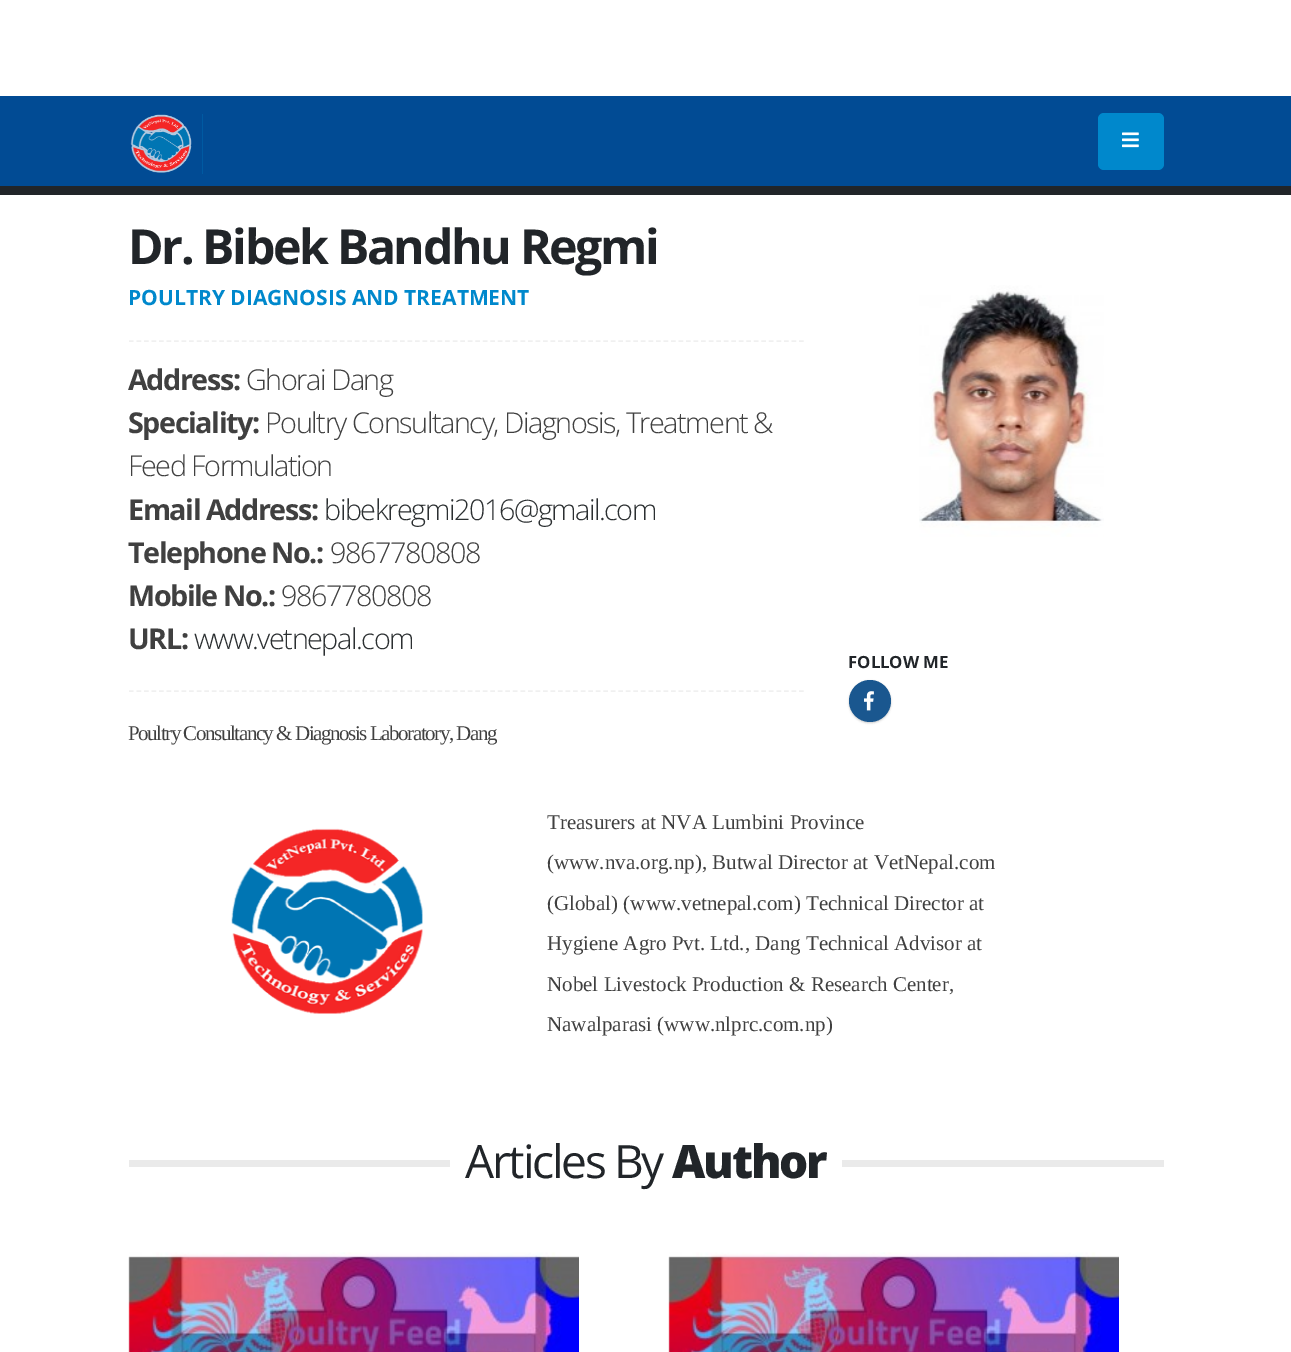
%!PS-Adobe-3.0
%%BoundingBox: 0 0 1291 1352
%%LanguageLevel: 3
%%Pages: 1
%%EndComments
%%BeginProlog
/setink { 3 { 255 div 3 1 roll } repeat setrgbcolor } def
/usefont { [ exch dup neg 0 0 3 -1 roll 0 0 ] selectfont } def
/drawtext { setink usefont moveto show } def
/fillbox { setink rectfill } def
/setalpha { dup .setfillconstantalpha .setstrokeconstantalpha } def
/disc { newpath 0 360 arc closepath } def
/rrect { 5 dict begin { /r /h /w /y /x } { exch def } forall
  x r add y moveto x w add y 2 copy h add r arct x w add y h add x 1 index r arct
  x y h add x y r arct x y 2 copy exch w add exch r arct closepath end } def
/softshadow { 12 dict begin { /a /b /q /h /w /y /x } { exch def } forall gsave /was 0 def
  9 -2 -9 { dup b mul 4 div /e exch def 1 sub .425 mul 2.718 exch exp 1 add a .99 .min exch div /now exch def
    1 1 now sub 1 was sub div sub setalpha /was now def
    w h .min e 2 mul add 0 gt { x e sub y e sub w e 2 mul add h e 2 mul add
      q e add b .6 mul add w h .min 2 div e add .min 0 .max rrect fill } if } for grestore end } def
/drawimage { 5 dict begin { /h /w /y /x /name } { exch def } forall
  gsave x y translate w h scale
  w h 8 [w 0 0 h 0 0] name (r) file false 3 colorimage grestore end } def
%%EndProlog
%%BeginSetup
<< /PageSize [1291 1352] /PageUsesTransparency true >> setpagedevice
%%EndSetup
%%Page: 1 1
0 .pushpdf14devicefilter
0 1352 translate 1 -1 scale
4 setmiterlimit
0 0 1291 1352 255 255 255 fillbox
0 96 1291 90 1 75 148 fillbox
0 136 204 setink
1098 113 66 57 6 rrect fill
(assets/img1.rgb) 1122 132 17 16 drawimage
(assets/img2.rgb) 130 114 73 60 drawimage
0 186 1291 9 33 37 41 fillbox
/OpenSans-Bold 48.25 usefont
128 264 moveto -2.4 0 (Dr. Bibek Bandhu Regmi) ashow
(POULTRY DIAGNOSIS AND TREATMENT) 128 305 /OpenSans-Bold 21 0 136 204 drawtext
240 240 240 setink
1.5 setlinewidth
[4.5 3.03] 0 setdash
129 341 moveto 804 341 lineto stroke
/OpenSans-Bold 28.75 usefont
64 64 64 setink
128 390 moveto -1.45 0 (Address:) ashow
/OpenSans-Light 28.75 usefont
246 390 moveto -1.45 0 (Ghorai Dang) ashow
/OpenSans-Bold 28.75 usefont
128 433 moveto -1.45 0 (Speciality:) ashow
/OpenSans-Light 28.75 usefont
265 433 moveto -1.45 0 (Poultry Consultancy, Diagnosis, Treatment &) ashow
128 476 moveto -1.45 0 (Feed Formulation) ashow
/OpenSans-Bold 28.75 usefont
128 520 moveto -1.45 0 (Email Address:) ashow
/OpenSans-Light 28.75 usefont
43 47 49 setink
324 520 moveto -1.45 0 (bibekregmi2016@gmail.com) ashow
/OpenSans-Bold 28.75 usefont
64 64 64 setink
128 563 moveto -1.45 0 (Telephone No.:) ashow
/OpenSans-Light 28.75 usefont
330 563 moveto -1.45 0 (9867780808) ashow
/OpenSans-Bold 28.75 usefont
128 606 moveto -1.45 0 (Mobile No.:) ashow
/OpenSans-Light 28.75 usefont
281 606 moveto -1.45 0 (9867780808) ashow
/OpenSans-Bold 28.75 usefont
128 649 moveto -1.45 0 (URL:) ashow
/OpenSans-Light 28.75 usefont
43 47 49 setink
194 649 moveto -1.45 0 (www.vetnepal.com) ashow
240 240 240 setink
129 691 moveto 804 691 lineto stroke
/LiberationSerif-Regular 21 usefont
64 64 64 setink
128 740 moveto -1.45 0 (Poultry Consultancy & Diagnosis Laboratory, Dang) ashow
(assets/img3.rgb) 231 828 192 186 drawimage
(Treasurers at NVA Lumbini Province) 547 829 /LiberationSerif-Regular 21 64 64 64 drawtext
(\(www.nva.org.np\), Butwal Director at VetNepal.com) 547 869 /LiberationSerif-Regular 21 64 64 64 drawtext
(\(Global\) \(www.vetnepal.com\) Technical Director at) 547 910 /LiberationSerif-Regular 21 64 64 64 drawtext
(Hygiene Agro Pvt. Ltd., Dang Technical Advisor at) 547 950 /LiberationSerif-Regular 21 64 64 64 drawtext
(Nobel Livestock Production & Research Center,) 547 991 /LiberationSerif-Regular 21 64 64 64 drawtext
(Nawalparasi \(www.nlprc.com.np\)) 547 1031 /LiberationSerif-Regular 21 64 64 64 drawtext
(assets/img4.rgb) 919 285 185 252 drawimage
(FOLLOW ME) 848 668 /OpenSans-Bold 16.75 33 37 41 drawtext
0 0 0 setink
849 681 42 42 21 1 0.2 softshadow
26 87 143 setink
870 701 21 disc fill
(assets/img5.rgb) 864 691 10 20 drawimage
129 1160 1035 7 234 234 234 fillbox
450 1160 392 7 255 255 255 fillbox
/OpenSans-Regular 46 usefont
33 37 41 setink
465 1178 moveto -2.25 0 (Articles By) ashow
/OpenSans-ExtraBold 46 usefont
672 1178 moveto -2.25 0 (Author) ashow
(assets/img6.rgb) 128 1252 451 100 drawimage
(assets/img6.rgb) 668 1252 451 100 drawimage
.poppdf14devicefilter showpage
%%EOF
